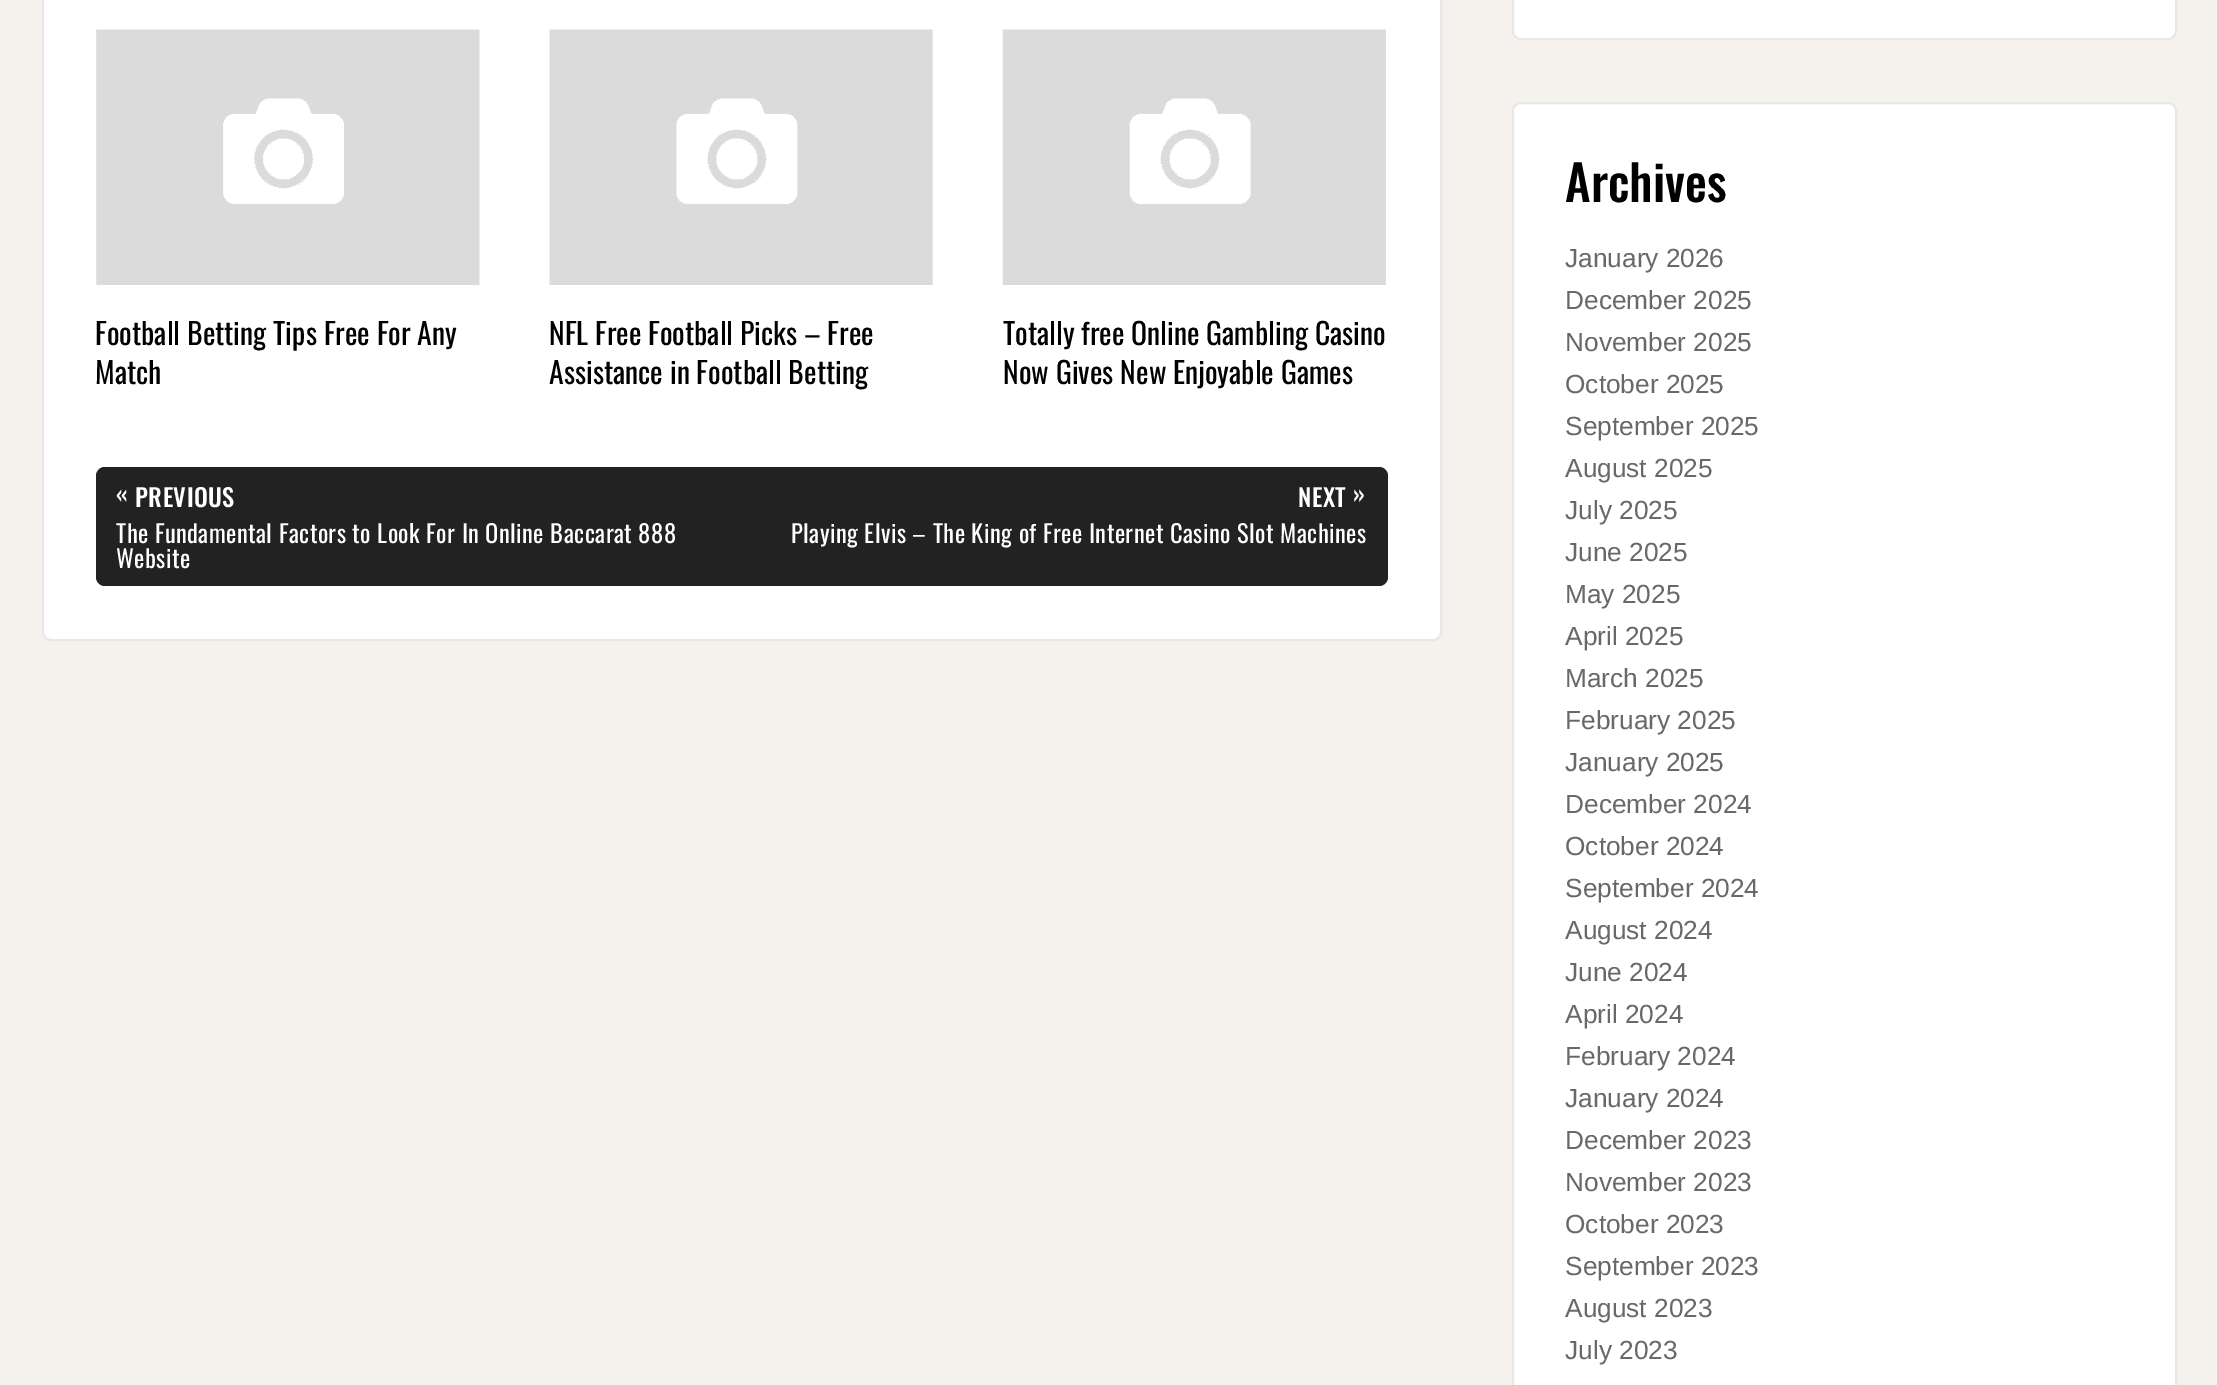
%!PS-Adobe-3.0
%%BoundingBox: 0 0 2217 1385
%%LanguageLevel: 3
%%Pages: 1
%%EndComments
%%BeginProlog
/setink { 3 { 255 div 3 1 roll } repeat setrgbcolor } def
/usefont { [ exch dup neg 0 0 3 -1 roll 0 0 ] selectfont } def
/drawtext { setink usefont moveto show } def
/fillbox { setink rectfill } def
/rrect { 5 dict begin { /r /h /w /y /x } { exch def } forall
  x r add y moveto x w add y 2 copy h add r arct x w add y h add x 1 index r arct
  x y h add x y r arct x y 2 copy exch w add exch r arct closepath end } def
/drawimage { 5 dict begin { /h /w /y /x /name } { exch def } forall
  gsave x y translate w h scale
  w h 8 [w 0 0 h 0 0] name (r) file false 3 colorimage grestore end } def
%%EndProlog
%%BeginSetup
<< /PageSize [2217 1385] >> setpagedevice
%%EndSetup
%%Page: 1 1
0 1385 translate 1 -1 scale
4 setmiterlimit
0 0 2217 1385 245 242 237 fillbox
255 255 255 setink
43 -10 1398 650 8 rrect gsave fill grestore
232 232 232 setink
2 setlinewidth
stroke
(assets/img1.rgb) 96 29 384 256 drawimage
(Football Betting Tips Free For Any) 95 345 /Oswald-Regular 29.75 0 0 0 drawtext
(Match) 95 384 /Oswald-Regular 29.75 0 0 0 drawtext
(assets/img2.rgb) 549 29 384 256 drawimage
(NFL Free Football Picks – Free) 549 345 /Oswald-Regular 29.75 0 0 0 drawtext
(Assistance in Football Betting) 549 384 /Oswald-Regular 29.75 0 0 0 drawtext
(assets/img3.rgb) 1002 29 384 256 drawimage
(Totally free Online Gambling Casino) 1003 345 /Oswald-Regular 29.75 0 0 0 drawtext
(Now Gives New Enjoyable Games) 1003 384 /Oswald-Regular 29.75 0 0 0 drawtext
34 34 34 setink
96 467 1292 119 9 rrect fill
/Oswald-Medium 24.5 usefont
255 255 255 setink
116 503 moveto 0.45 0 («) ashow
135 507 moveto 0.45 0 (PREVIOUS) ashow
/Oswald-Regular 24.5 usefont
116 543 moveto 0.45 0 (The Fundamental Factors to Look For In Online Baccarat 888) ashow
116 568 moveto 0.45 0 (Website) ashow
/Oswald-Medium 24.5 usefont
1298 507 moveto 0.45 0 (NEXT) ashow
1353 503 moveto 0.45 0 (») ashow
/Oswald-Regular 24.5 usefont
791 543 moveto 0.45 0 (Playing Elvis – The King of Free Internet Casino Slot Machines) ashow
1513 -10 663 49 8 rrect gsave fill grestore
232 232 232 setink
stroke
255 255 255 setink
1513 103 663 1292 8 rrect gsave fill grestore
232 232 232 setink
stroke
(Archives) 1565 202 /Oswald-Medium 49 0 0 0 drawtext
(January 2026) 1565 267 /LiberationSans-Regular 26.25 104 104 104 drawtext
(December 2025) 1565 309 /LiberationSans-Regular 26.25 104 104 104 drawtext
(November 2025) 1565 351 /LiberationSans-Regular 26.25 104 104 104 drawtext
(October 2025) 1565 393 /LiberationSans-Regular 26.25 104 104 104 drawtext
(September 2025) 1565 435 /LiberationSans-Regular 26.25 104 104 104 drawtext
(August 2025) 1565 477 /LiberationSans-Regular 26.25 104 104 104 drawtext
(July 2025) 1565 519 /LiberationSans-Regular 26.25 104 104 104 drawtext
(June 2025) 1565 561 /LiberationSans-Regular 26.25 104 104 104 drawtext
(May 2025) 1565 603 /LiberationSans-Regular 26.25 104 104 104 drawtext
(April 2025) 1565 645 /LiberationSans-Regular 26.25 104 104 104 drawtext
(March 2025) 1565 687 /LiberationSans-Regular 26.25 104 104 104 drawtext
(February 2025) 1565 729 /LiberationSans-Regular 26.25 104 104 104 drawtext
(January 2025) 1565 771 /LiberationSans-Regular 26.25 104 104 104 drawtext
(December 2024) 1565 813 /LiberationSans-Regular 26.25 104 104 104 drawtext
(October 2024) 1565 855 /LiberationSans-Regular 26.25 104 104 104 drawtext
(September 2024) 1565 897 /LiberationSans-Regular 26.25 104 104 104 drawtext
(August 2024) 1565 939 /LiberationSans-Regular 26.25 104 104 104 drawtext
(June 2024) 1565 981 /LiberationSans-Regular 26.25 104 104 104 drawtext
(April 2024) 1565 1023 /LiberationSans-Regular 26.25 104 104 104 drawtext
(February 2024) 1565 1065 /LiberationSans-Regular 26.25 104 104 104 drawtext
(January 2024) 1565 1107 /LiberationSans-Regular 26.25 104 104 104 drawtext
(December 2023) 1565 1149 /LiberationSans-Regular 26.25 104 104 104 drawtext
(November 2023) 1565 1191 /LiberationSans-Regular 26.25 104 104 104 drawtext
(October 2023) 1565 1233 /LiberationSans-Regular 26.25 104 104 104 drawtext
(September 2023) 1565 1275 /LiberationSans-Regular 26.25 104 104 104 drawtext
(August 2023) 1565 1317 /LiberationSans-Regular 26.25 104 104 104 drawtext
(July 2023) 1565 1359 /LiberationSans-Regular 26.25 104 104 104 drawtext
showpage
%%EOF
